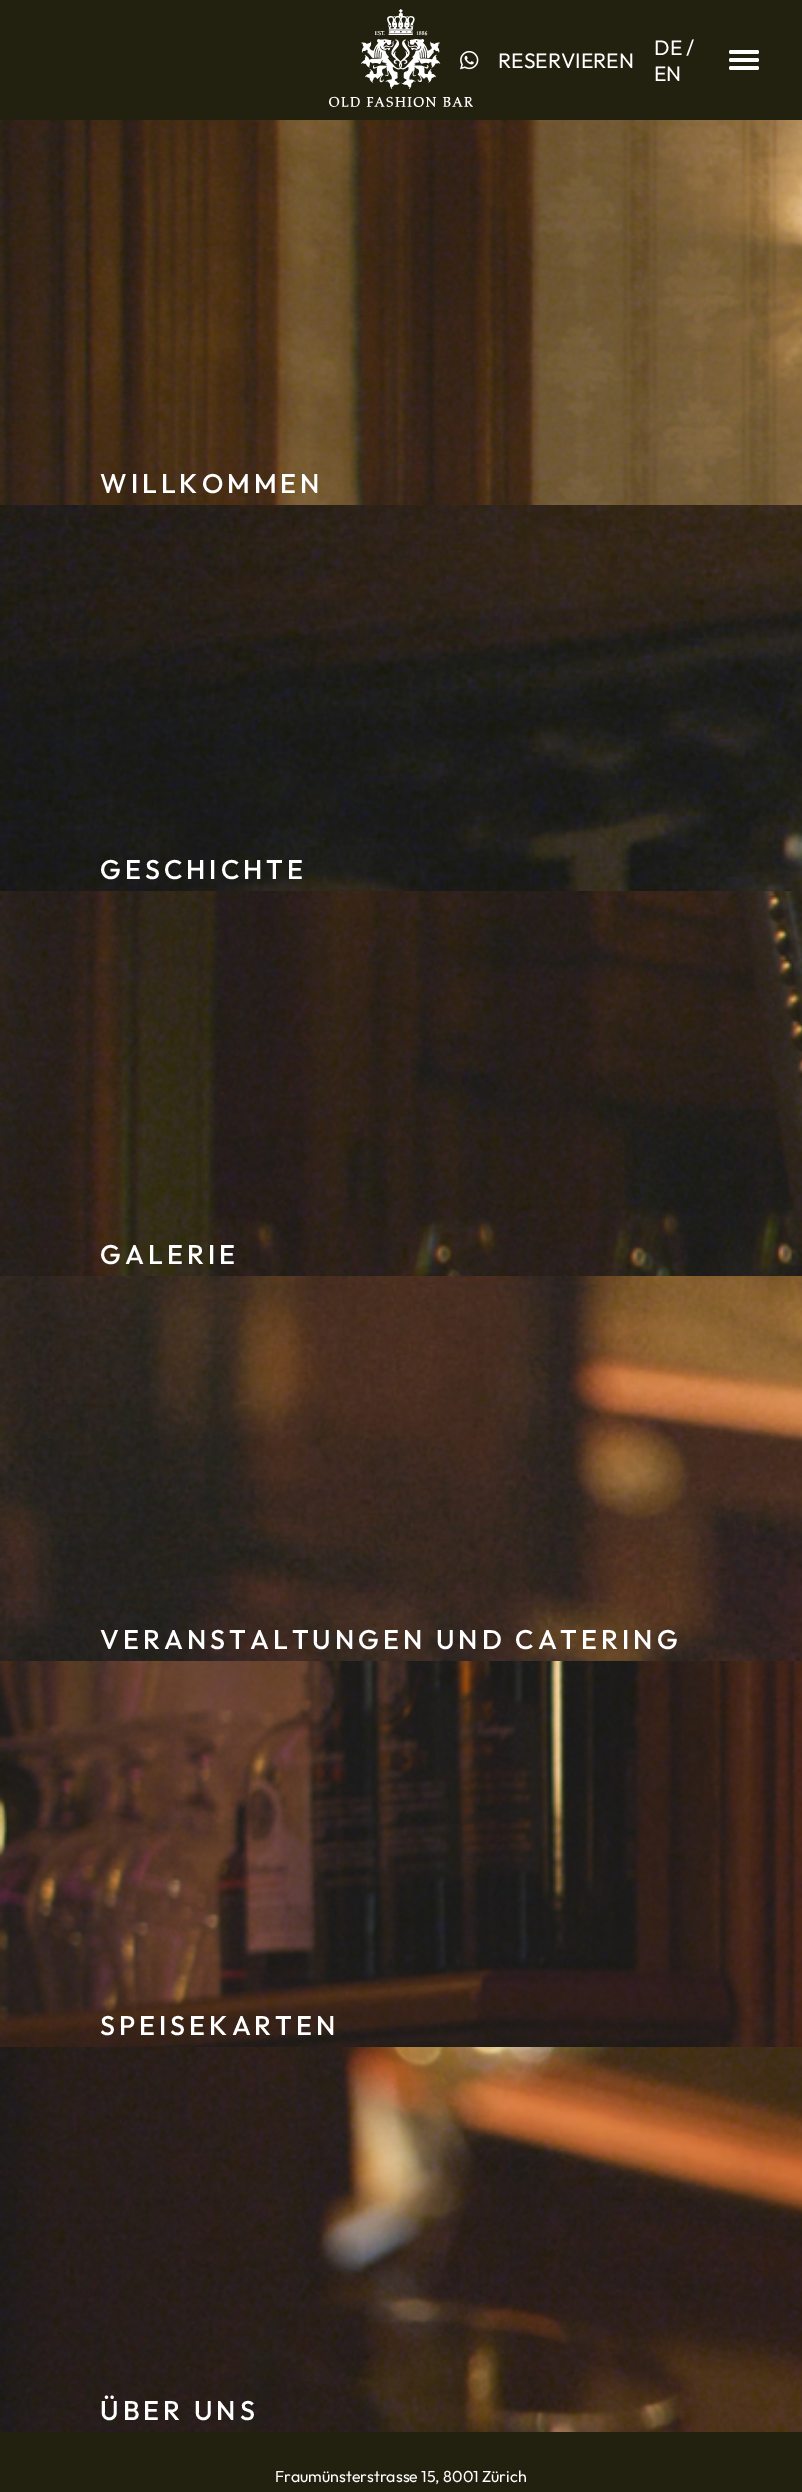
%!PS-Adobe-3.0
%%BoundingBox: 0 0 802 2492
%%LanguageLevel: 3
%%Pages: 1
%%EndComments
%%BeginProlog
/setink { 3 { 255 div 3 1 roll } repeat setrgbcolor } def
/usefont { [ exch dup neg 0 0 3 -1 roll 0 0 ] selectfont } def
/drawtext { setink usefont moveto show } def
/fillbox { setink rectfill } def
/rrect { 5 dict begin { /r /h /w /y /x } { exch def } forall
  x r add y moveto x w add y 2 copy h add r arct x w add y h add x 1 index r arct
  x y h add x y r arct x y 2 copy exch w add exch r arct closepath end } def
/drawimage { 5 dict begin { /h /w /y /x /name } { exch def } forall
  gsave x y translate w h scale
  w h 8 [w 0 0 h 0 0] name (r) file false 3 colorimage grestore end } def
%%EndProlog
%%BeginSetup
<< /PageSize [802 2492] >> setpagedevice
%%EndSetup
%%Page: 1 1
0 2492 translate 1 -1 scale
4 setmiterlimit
0 0 802 2492 34 33 16 fillbox
(assets/img1.rgb) 329 9 144 98 drawimage
(assets/img2.rgb) 460 50 19 20 drawimage
(RESERVIEREN) 498 68 /Outfit-Regular 21 255 255 255 drawtext
(DE /) 654 55 /Outfit-Regular 21 255 255 255 drawtext
(EN) 654 81 /Outfit-Regular 21 255 255 255 drawtext
729 50 30 4 2 rrect fill
729 58 30 4 2 rrect fill
729 66 30 4 2 rrect fill
(assets/img3.rgb) 0 120 802 385 drawimage
/Outfit-Medium 27 usefont
100 493 moveto 4 0 (WILLKOMMEN) ashow
(assets/img4.rgb) 0 505 802 386 drawimage
100 879 moveto 4 0 (GESCHICHTE) ashow
(assets/img5.rgb) 0 891 802 385 drawimage
100 1264 moveto 4 0 (GALERIE) ashow
(assets/img6.rgb) 0 1276 802 385 drawimage
100 1649 moveto 4 0 (VERANSTALTUNGEN UND CATERING) ashow
(assets/img7.rgb) 0 1661 802 386 drawimage
100 2035 moveto 4 0 (SPEISEKARTEN) ashow
(assets/img8.rgb) 0 2047 802 385 drawimage
100 2420 moveto 4 0 (ÜBER UNS) ashow
(Fraumünsterstrasse 15, 8001 Zürich) 275 2482 /Outfit-Regular 16 255 255 255 drawtext
showpage
%%EOF
